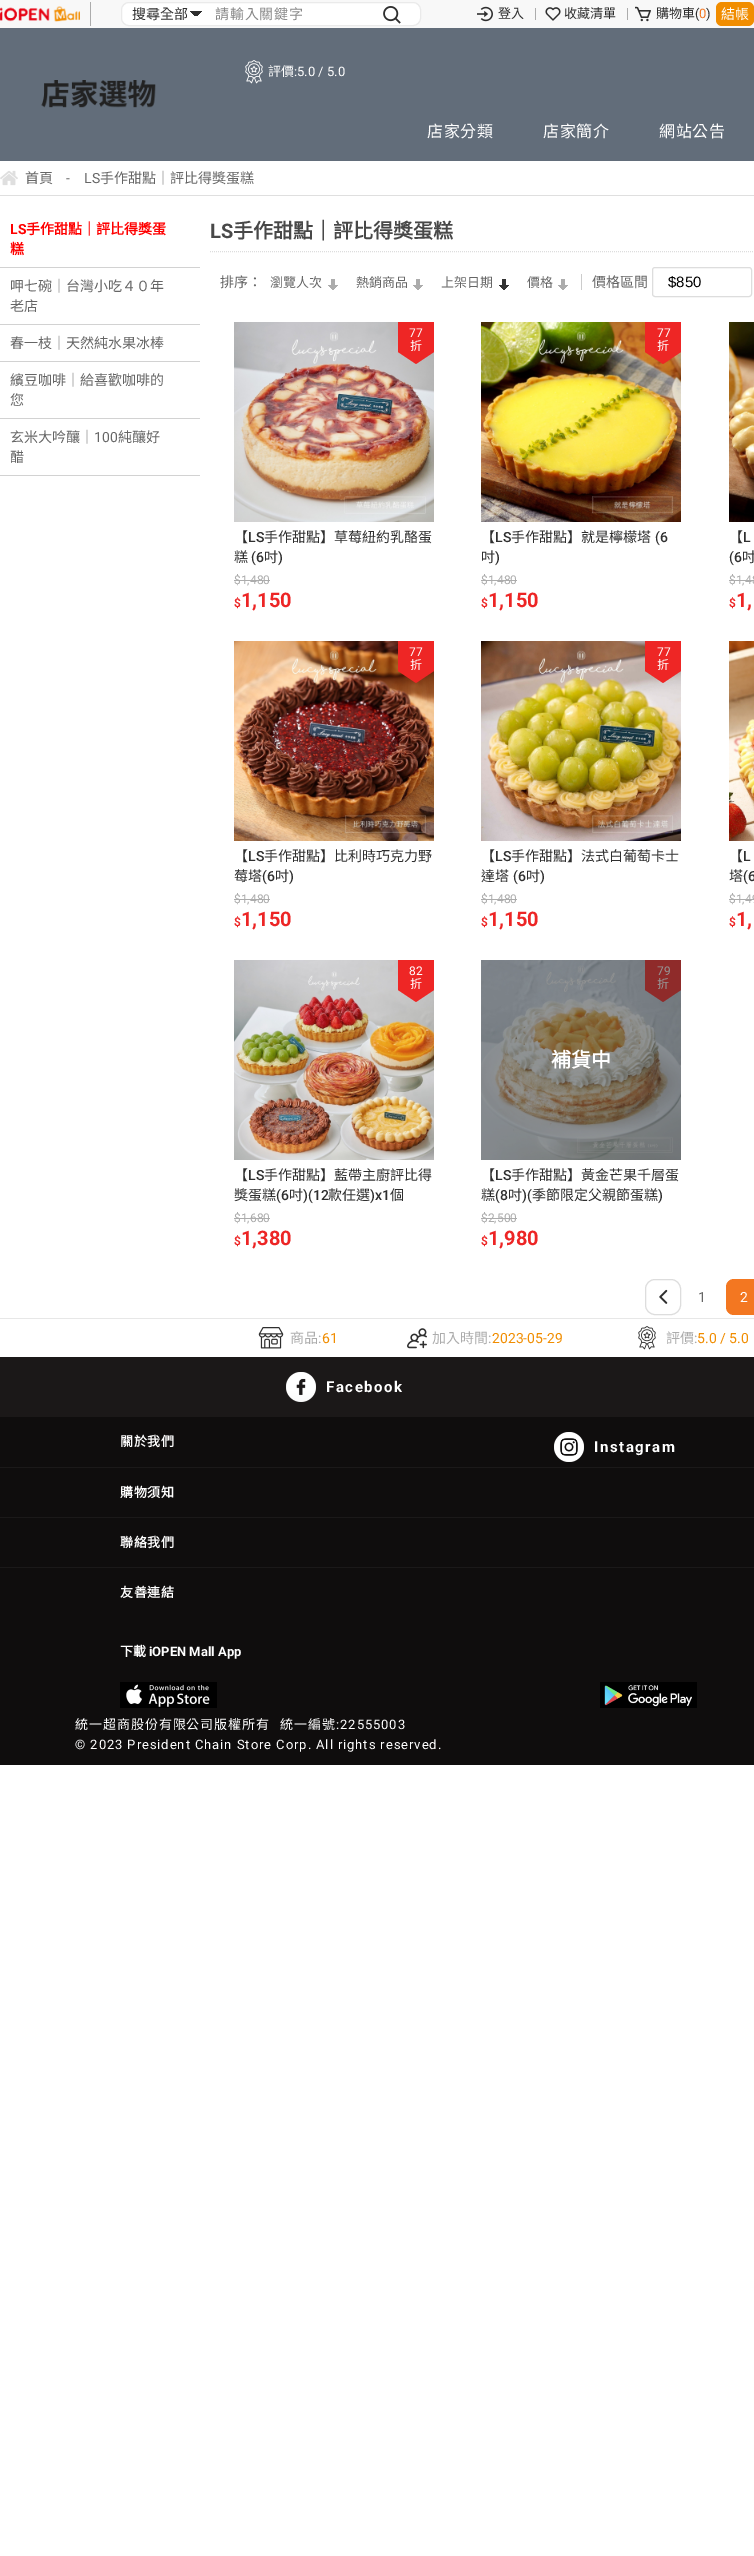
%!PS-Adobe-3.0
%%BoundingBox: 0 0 754 2556
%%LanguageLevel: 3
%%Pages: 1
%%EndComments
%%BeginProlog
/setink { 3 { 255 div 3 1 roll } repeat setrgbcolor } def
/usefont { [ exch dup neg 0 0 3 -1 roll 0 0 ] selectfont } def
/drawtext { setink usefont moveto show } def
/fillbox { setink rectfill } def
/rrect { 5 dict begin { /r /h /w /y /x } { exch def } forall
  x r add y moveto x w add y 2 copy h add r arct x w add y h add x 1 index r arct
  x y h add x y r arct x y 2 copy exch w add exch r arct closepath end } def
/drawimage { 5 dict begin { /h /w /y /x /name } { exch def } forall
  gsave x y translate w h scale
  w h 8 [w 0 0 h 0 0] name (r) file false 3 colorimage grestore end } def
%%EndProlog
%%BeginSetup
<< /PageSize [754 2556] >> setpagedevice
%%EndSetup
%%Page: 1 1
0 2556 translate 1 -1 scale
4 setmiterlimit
0 0 754 2556 255 255 255 fillbox
0 0 754 28 248 248 248 fillbox
90 2 1 24 172 172 172 fillbox
(assets/img1.rgb) 0 6 80 16 drawimage
255 255 255 setink
121.5 2.5 299 23 7.5 rrect gsave fill grestore
234 234 234 setink
stroke
gsave 196 11 moveto 202 11 lineto 202 16 lineto 196 16 lineto closepath clip newpath
<< /ShadingType 2 /ColorSpace /DeviceRGB /Coords [196 11 202 17] /Extend [true true] /Function << /FunctionType 3 /Domain [0 1] /Functions [<< /FunctionType 2 /Domain [0 1] /C0 [0.184 0.184 0.184] /C1 [0.184 0.184 0.184] /N 1 >> << /FunctionType 2 /Domain [0 1] /C0 [1 1 1] /C1 [1 1 1] /N 1 >>] /Bounds [0.5] /Encode [0 1 0 1] >> >> shfill grestore
gsave 190 11 moveto 196 11 lineto 196 16 lineto 190 16 lineto closepath clip newpath
<< /ShadingType 2 /ColorSpace /DeviceRGB /Coords [190 17 196 11] /Extend [true true] /Function << /FunctionType 3 /Domain [0 1] /Functions [<< /FunctionType 2 /Domain [0 1] /C0 [1 1 1] /C1 [1 1 1] /N 1 >> << /FunctionType 2 /Domain [0 1] /C0 [0.184 0.184 0.184] /C1 [0.184 0.184 0.184] /N 1 >>] /Bounds [0.5] /Encode [0 1 0 1] >> >> shfill grestore
(搜尋全部) 132 19 /NotoSansCJKTC-Regular 14 47 47 47 drawtext
136 136 136 setink
215 19 moveto 0.75 0 (請輸入關鍵字) ashow
(assets/img2.rgb) 383 6 18 18 drawimage
(assets/img3.rgb) 477 6 16 16 drawimage
(登入) 498 18 /NotoSansCJKTC-Regular 13 47 47 47 drawtext
535 8 1 12 172 172 172 fillbox
(assets/img4.rgb) 545 7 16 14 drawimage
(收藏清單) 564 18 /NotoSansCJKTC-Regular 13 47 47 47 drawtext
627 8 1 12 172 172 172 fillbox
(assets/img5.rgb) 635 6 16 16 drawimage
(購物車) 656 18 /NotoSansCJKTC-Regular 13 47 47 47 drawtext
(\() 695 18 /Roboto-Regular 13 47 47 47 drawtext
(0) 699 18 /Roboto-Regular 13 243 119 33 drawtext
(\)) 706 18 /Roboto-Regular 13 47 47 47 drawtext
241 141 0 setink
716 2 38 24 6 rrect fill
(結帳) 721 19 /NotoSansCJKTC-Regular 14 255 255 255 drawtext
0 28 754 133 98 109 122 fillbox
(assets/img6.rgb) 245 60 18 24 drawimage
(評價) 268 76 /NotoSansCJKTC-Regular 13 255 255 255 drawtext
(:5.0 / 5.0) 294 76 /Roboto-Regular 13 255 255 255 drawtext
(assets/img7.rgb) 41 80 115 28 drawimage
/NotoSansCJKTC-Regular 16 usefont
427 137 moveto 0.5 0 (店家分類) ashow
543 137 moveto 0.5 0 (店家簡介) ashow
659 137 moveto 0.5 0 (網站公告) ashow
0 195 754 1 223 223 223 fillbox
(assets/img8.rgb) 0 170 18 16 drawimage
(首頁) 25 183 /NotoSansCJKTC-Regular 14 102 102 102 drawtext
(-) 66 183 /Roboto-Regular 14 102 102 102 drawtext
(LS) 84 183 /Roboto-Regular 14 102 102 102 drawtext
(手作甜點｜評比得獎蛋糕) 100 183 /NotoSansCJKTC-Regular 14 102 102 102 drawtext
0 267 200 1 210 210 210 fillbox
(LS) 10 234 /Roboto-Bold 14 255 0 0 drawtext
(手作甜點｜評比得獎蛋) 26 234 /NotoSansCJKTC-Bold 14 255 0 0 drawtext
(糕) 10 254 /NotoSansCJKTC-Bold 14 255 0 0 drawtext
0 324 200 1 210 210 210 fillbox
(呷七碗｜台灣小吃４０年) 10 291 /NotoSansCJKTC-Regular 14 102 102 102 drawtext
(老店) 10 311 /NotoSansCJKTC-Regular 14 102 102 102 drawtext
0 361 200 1 210 210 210 fillbox
(春一枝｜天然純水果冰棒) 10 348 /NotoSansCJKTC-Regular 14 102 102 102 drawtext
0 418 200 1 210 210 210 fillbox
(繽豆咖啡｜給喜歡咖啡的) 10 385 /NotoSansCJKTC-Regular 14 102 102 102 drawtext
(您) 10 405 /NotoSansCJKTC-Regular 14 102 102 102 drawtext
0 475 200 1 210 210 210 fillbox
(玄米大吟釀｜) 10 442 /NotoSansCJKTC-Regular 14 102 102 102 drawtext
(100) 94 442 /Roboto-Regular 14 102 102 102 drawtext
(純釀好) 118 442 /NotoSansCJKTC-Regular 14 102 102 102 drawtext
(醋) 10 462 /NotoSansCJKTC-Regular 14 102 102 102 drawtext
221 221 221 setink
[1 1] 0 setdash
210 251.5 moveto 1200 251.5 lineto stroke
(LS) 210 238 /Roboto-Bold 20 72 72 72 drawtext
(手作甜點｜評比得獎蛋糕) 233 238 /NotoSansCJKTC-Bold 20 72 72 72 drawtext
(排序：) 220 287 /NotoSansCJKTC-Regular 14 102 102 102 drawtext
(瀏覽人次) 270 287 /NotoSansCJKTC-Regular 13 102 102 102 drawtext
(assets/img9.rgb) 328 279 10 11 drawimage
(熱銷商品) 356 287 /NotoSansCJKTC-Regular 13 102 102 102 drawtext
(assets/img9.rgb) 413 279 10 11 drawimage
(上架日期) 441 287 /NotoSansCJKTC-Regular 13 102 102 102 drawtext
(assets/img10.rgb) 499 279 10 11 drawimage
(價格) 527 287 /NotoSansCJKTC-Regular 13 102 102 102 drawtext
(assets/img9.rgb) 558 279 10 11 drawimage
(價格區間) 592 287 /NotoSansCJKTC-Regular 14 102 102 102 drawtext
581 274 1 16 204 204 204 fillbox
221 221 221 setink
[] 0 setdash
652.5 267.5 99 29 2.5 rrect stroke
($850) 668 287 /LiberationSans-Regular 15 0 0 0 drawtext
(assets/img11.rgb) 234 322 200 200 drawimage
398 322 36 30 238 38 37 fillbox
(77) 409 337 /Roboto-Regular 12 255 255 255 drawtext
(折) 410 350 /NotoSansCJKTC-Regular 12 255 255 255 drawtext
238 38 37 setink
398 352 moveto 434 352 lineto 416 364 lineto closepath fill
(【) 234 542 /NotoSansCJKTC-Regular 14 47 47 47 drawtext
(LS) 248 542 /Roboto-Medium 14 47 47 47 drawtext
(手作甜點】草莓紐約乳酪蛋) 264 542 /NotoSansCJKTC-Regular 14 47 47 47 drawtext
(糕) 234 562 /NotoSansCJKTC-Regular 14 47 47 47 drawtext
(\(6) 251 562 /Roboto-Medium 14 47 47 47 drawtext
(吋) 264 562 /NotoSansCJKTC-Regular 14 47 47 47 drawtext
(\)) 278 562 /Roboto-Medium 14 47 47 47 drawtext
($1,480) 234 584 /Roboto-Regular 12 172 172 172 drawtext
234 580 36 1 172 172 172 fillbox
($) 234 607 /Roboto-SemiBold 12 237 37 37 drawtext
(1,150) 241 607 /Roboto-Bold 20 237 37 37 drawtext
(assets/img12.rgb) 481 322 200 200 drawimage
645 322 36 30 238 38 37 fillbox
(77) 657 337 /Roboto-Regular 12 255 255 255 drawtext
(折) 657 350 /NotoSansCJKTC-Regular 12 255 255 255 drawtext
238 38 37 setink
645 352 moveto 681 352 lineto 663 364 lineto closepath fill
(【) 481 542 /NotoSansCJKTC-Regular 14 47 47 47 drawtext
(LS) 495 542 /Roboto-Medium 14 47 47 47 drawtext
(手作甜點】就是檸檬塔) 511 542 /NotoSansCJKTC-Regular 14 47 47 47 drawtext
(\(6) 655 542 /Roboto-Medium 14 47 47 47 drawtext
(吋) 481 562 /NotoSansCJKTC-Regular 14 47 47 47 drawtext
(\)) 495 562 /Roboto-Medium 14 47 47 47 drawtext
($1,480) 481 584 /Roboto-Regular 12 172 172 172 drawtext
481 580 36 1 172 172 172 fillbox
($) 481 607 /Roboto-SemiBold 12 237 37 37 drawtext
(1,150) 488 607 /Roboto-Bold 20 237 37 37 drawtext
(assets/img13.rgb) 729 322 25 200 drawimage
(【) 729 542 /NotoSansCJKTC-Regular 14 47 47 47 drawtext
(L) 743 542 /Roboto-Medium 14 47 47 47 drawtext
(\(6) 729 562 /Roboto-Medium 14 47 47 47 drawtext
(吋) 742 562 /NotoSansCJKTC-Regular 14 47 47 47 drawtext
($1,48) 729 584 /Roboto-Regular 12 172 172 172 drawtext
729 580 25 1 172 172 172 fillbox
($) 729 607 /Roboto-SemiBold 12 237 37 37 drawtext
(1,) 736 607 /Roboto-Bold 20 237 37 37 drawtext
(assets/img14.rgb) 234 641 200 200 drawimage
398 641 36 30 238 38 37 fillbox
(77) 409 656 /Roboto-Regular 12 255 255 255 drawtext
(折) 410 669 /NotoSansCJKTC-Regular 12 255 255 255 drawtext
238 38 37 setink
398 671 moveto 434 671 lineto 416 683 lineto closepath fill
(【) 234 861 /NotoSansCJKTC-Regular 14 47 47 47 drawtext
(LS) 248 861 /Roboto-Medium 14 47 47 47 drawtext
(手作甜點】比利時巧克力野) 264 861 /NotoSansCJKTC-Regular 14 47 47 47 drawtext
(莓塔) 234 881 /NotoSansCJKTC-Regular 14 47 47 47 drawtext
(\(6) 262 881 /Roboto-Medium 14 47 47 47 drawtext
(吋) 275 881 /NotoSansCJKTC-Regular 14 47 47 47 drawtext
(\)) 289 881 /Roboto-Medium 14 47 47 47 drawtext
($1,480) 234 903 /Roboto-Regular 12 172 172 172 drawtext
234 899 36 1 172 172 172 fillbox
($) 234 926 /Roboto-SemiBold 12 237 37 37 drawtext
(1,150) 241 926 /Roboto-Bold 20 237 37 37 drawtext
(assets/img15.rgb) 481 641 200 200 drawimage
645 641 36 30 238 38 37 fillbox
(77) 657 656 /Roboto-Regular 12 255 255 255 drawtext
(折) 657 669 /NotoSansCJKTC-Regular 12 255 255 255 drawtext
238 38 37 setink
645 671 moveto 681 671 lineto 663 683 lineto closepath fill
(【) 481 861 /NotoSansCJKTC-Regular 14 47 47 47 drawtext
(LS) 495 861 /Roboto-Medium 14 47 47 47 drawtext
(手作甜點】法式白葡萄卡士) 511 861 /NotoSansCJKTC-Regular 14 47 47 47 drawtext
(達塔) 481 881 /NotoSansCJKTC-Regular 14 47 47 47 drawtext
(\(6) 513 881 /Roboto-Medium 14 47 47 47 drawtext
(吋) 526 881 /NotoSansCJKTC-Regular 14 47 47 47 drawtext
(\)) 540 881 /Roboto-Medium 14 47 47 47 drawtext
($1,480) 481 903 /Roboto-Regular 12 172 172 172 drawtext
481 899 36 1 172 172 172 fillbox
($) 481 926 /Roboto-SemiBold 12 237 37 37 drawtext
(1,150) 488 926 /Roboto-Bold 20 237 37 37 drawtext
(assets/img16.rgb) 729 641 25 200 drawimage
(【) 729 861 /NotoSansCJKTC-Regular 14 47 47 47 drawtext
(L) 743 861 /Roboto-Medium 14 47 47 47 drawtext
(塔) 729 881 /NotoSansCJKTC-Regular 14 47 47 47 drawtext
(\(6) 743 881 /Roboto-Medium 14 47 47 47 drawtext
($1,49) 729 903 /Roboto-Regular 12 172 172 172 drawtext
729 899 25 1 172 172 172 fillbox
($) 729 926 /Roboto-SemiBold 12 237 37 37 drawtext
(1,) 736 926 /Roboto-Bold 20 237 37 37 drawtext
(assets/img17.rgb) 234 960 200 200 drawimage
398 960 36 30 238 38 37 fillbox
(82) 409 975 /Roboto-Regular 12 255 255 255 drawtext
(折) 410 988 /NotoSansCJKTC-Regular 12 255 255 255 drawtext
238 38 37 setink
398 990 moveto 434 990 lineto 416 1002 lineto closepath fill
(【) 234 1180 /NotoSansCJKTC-Regular 14 47 47 47 drawtext
(LS) 248 1180 /Roboto-Medium 14 47 47 47 drawtext
(手作甜點】藍帶主廚評比得) 264 1180 /NotoSansCJKTC-Regular 14 47 47 47 drawtext
(獎蛋糕) 234 1200 /NotoSansCJKTC-Regular 14 47 47 47 drawtext
(\(6) 276 1200 /Roboto-Medium 14 47 47 47 drawtext
(吋) 289 1200 /NotoSansCJKTC-Regular 14 47 47 47 drawtext
(\)\(12) 303 1200 /Roboto-Medium 14 47 47 47 drawtext
(款任選) 328 1200 /NotoSansCJKTC-Regular 14 47 47 47 drawtext
(\)x1) 370 1200 /Roboto-Medium 14 47 47 47 drawtext
(個) 390 1200 /NotoSansCJKTC-Regular 14 47 47 47 drawtext
($1,680) 234 1222 /Roboto-Regular 12 172 172 172 drawtext
234 1218 36 1 172 172 172 fillbox
($) 234 1245 /Roboto-SemiBold 12 237 37 37 drawtext
(1,380) 241 1245 /Roboto-Bold 20 237 37 37 drawtext
(assets/img18.rgb) 481 960 200 200 drawimage
645 960 36 30 143 43 42 fillbox
(79) 657 975 /Roboto-Regular 12 151 151 151 drawtext
(折) 657 988 /NotoSansCJKTC-Regular 12 151 151 151 drawtext
143 43 42 setink
645 990 moveto 681 990 lineto 663 1002 lineto closepath fill
(補貨中) 551 1067 /NotoSansCJKTC-Bold 20 255 255 255 drawtext
(【) 481 1180 /NotoSansCJKTC-Regular 14 47 47 47 drawtext
(LS) 495 1180 /Roboto-Medium 14 47 47 47 drawtext
(手作甜點】黃金芒果千層蛋) 511 1180 /NotoSansCJKTC-Regular 14 47 47 47 drawtext
(糕) 481 1200 /NotoSansCJKTC-Regular 14 47 47 47 drawtext
(\(8) 495 1200 /Roboto-Medium 14 47 47 47 drawtext
(吋) 508 1200 /NotoSansCJKTC-Regular 14 47 47 47 drawtext
(\)\() 522 1200 /Roboto-Medium 14 47 47 47 drawtext
(季節限定父親節蛋糕) 532 1200 /NotoSansCJKTC-Regular 14 47 47 47 drawtext
(\)) 658 1200 /Roboto-Medium 14 47 47 47 drawtext
($2,500) 481 1222 /Roboto-Regular 12 172 172 172 drawtext
481 1218 36 1 172 172 172 fillbox
($) 481 1245 /Roboto-SemiBold 12 237 37 37 drawtext
(1,980) 488 1245 /Roboto-Bold 20 237 37 37 drawtext
221 221 221 setink
645.5 1279.5 35 35 9.5 rrect stroke
(assets/img19.rgb) 659 1289 9 15 drawimage
(1) 698 1302 /Roboto-Regular 14 102 102 102 drawtext
243 119 33 setink
726 1279 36 36 8 rrect fill
(2) 740 1302 /Roboto-Regular 14 255 255 255 drawtext
0 1417 754 348 15 13 13 fillbox
0 1318 754 1 231 231 231 fillbox
(assets/img20.rgb) 258 1327 26 22 drawimage
(商品) 290 1343 /NotoSansCJKTC-Regular 14 172 172 172 drawtext
(:) 318 1343 /Roboto-Regular 14 172 172 172 drawtext
(61) 322 1343 /Roboto-Regular 14 241 141 0 drawtext
(assets/img21.rgb) 407 1328 20 21 drawimage
(加入時間) 432 1343 /NotoSansCJKTC-Regular 14 172 172 172 drawtext
(:) 488 1343 /Roboto-Regular 14 172 172 172 drawtext
(2023-05-29) 492 1343 /Roboto-Regular 14 241 141 0 drawtext
(assets/img22.rgb) 638 1326 18 24 drawimage
(評價) 666 1343 /NotoSansCJKTC-Regular 14 172 172 172 drawtext
(:) 694 1343 /Roboto-Regular 14 172 172 172 drawtext
(5.0 / 5.0) 697 1343 /Roboto-Regular 14 241 141 0 drawtext
0 1357 754 60 27 24 24 fillbox
(assets/img23.rgb) 286 1372 30 30 drawimage
/Roboto-Bold 15 usefont
255 255 255 setink
326 1392 moveto 1.5 0 (Facebook) ashow
(assets/img24.rgb) 554 1432 30 30 drawimage
594 1452 moveto 1.5 0 (Instagram) ashow
/NotoSansCJKTC-Bold 13 usefont
120 1446 moveto 0.5 0 (關於我們) ashow
0 1467 754 1 27 25 25 fillbox
255 255 255 setink
120 1497 moveto 0.5 0 (購物須知) ashow
0 1517 754 1 27 25 25 fillbox
255 255 255 setink
120 1547 moveto 0.5 0 (聯絡我們) ashow
0 1567 754 1 27 25 25 fillbox
255 255 255 setink
120 1597 moveto 0.5 0 (友善連結) ashow
(下載) 120 1656 /NotoSansCJKTC-Bold 13 255 255 255 drawtext
(iOPEN Mall App) 149 1656 /Roboto-Bold 13 255 255 255 drawtext
(assets/img25.rgb) 120 1682 97 26 drawimage
(assets/img26.rgb) 600 1682 97 26 drawimage
/NotoSansCJKTC-Regular 13 usefont
75 1729 moveto 0.93 0 (統一超商股份有限公司版權所有) ashow
280 1729 moveto 0.93 0 (統一編號) ashow
/Roboto-Regular 13 usefont
336 1729 moveto 0.93 0 (:22555003) ashow
75 1749 moveto 0.93 0 (© 2023 President Chain Store Corp. All rights reserved.) ashow
showpage
%%EOF
